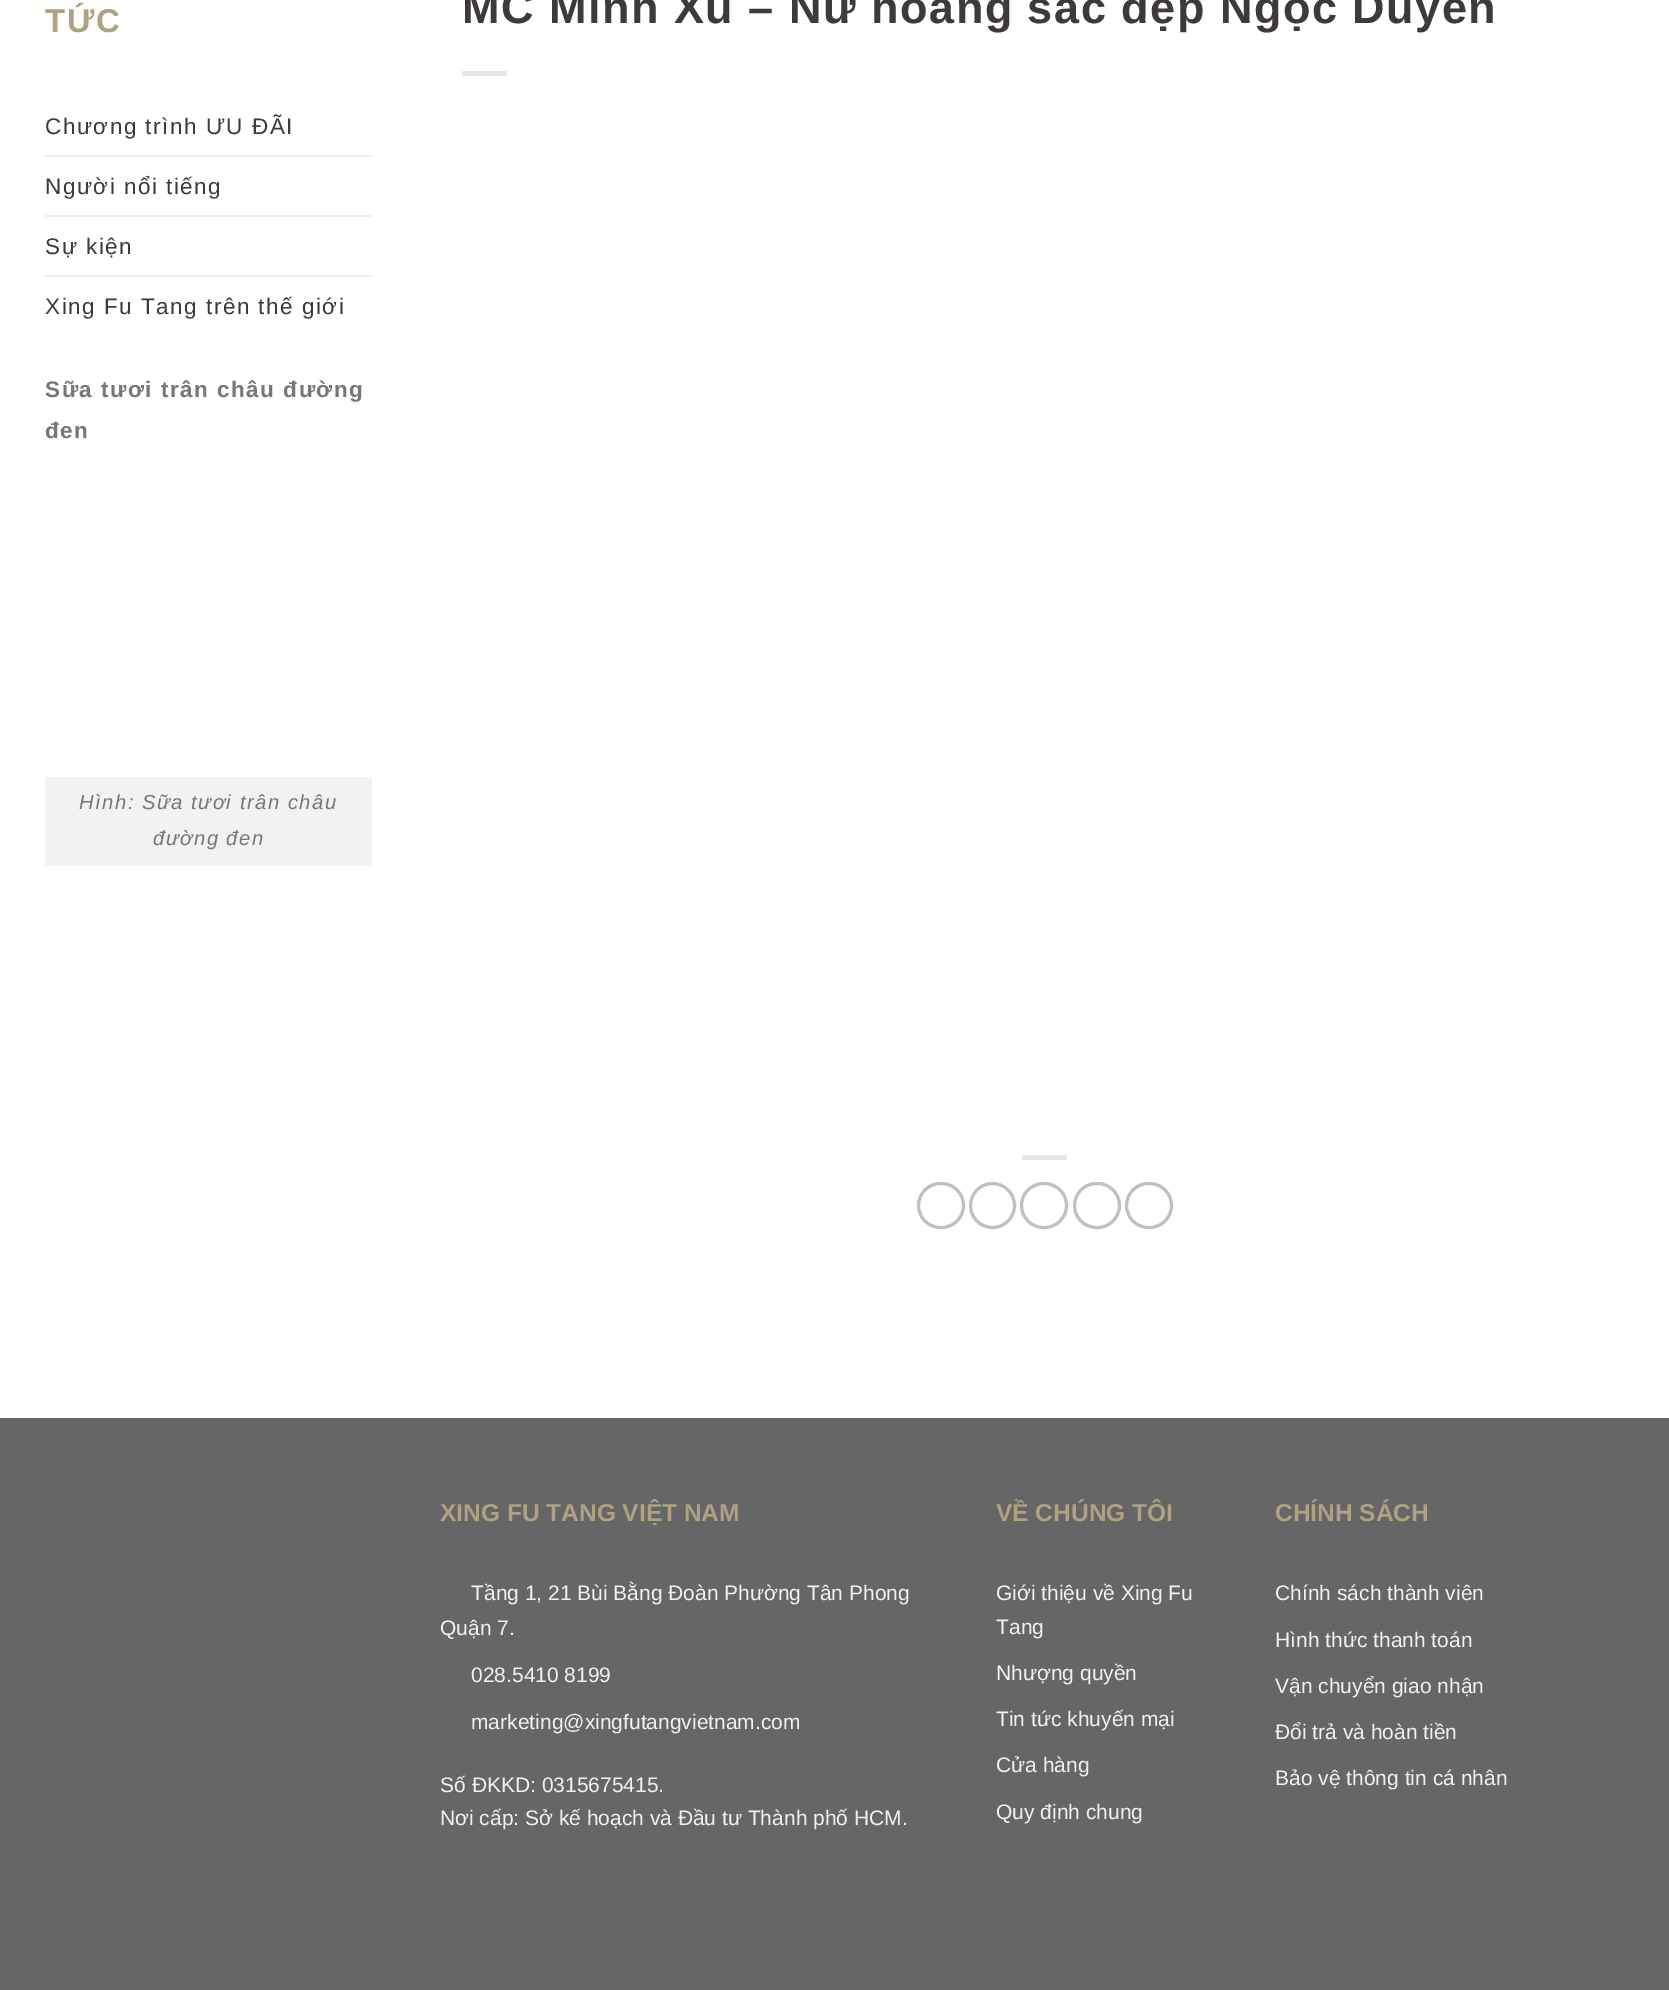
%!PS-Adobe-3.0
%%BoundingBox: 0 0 1669 1990
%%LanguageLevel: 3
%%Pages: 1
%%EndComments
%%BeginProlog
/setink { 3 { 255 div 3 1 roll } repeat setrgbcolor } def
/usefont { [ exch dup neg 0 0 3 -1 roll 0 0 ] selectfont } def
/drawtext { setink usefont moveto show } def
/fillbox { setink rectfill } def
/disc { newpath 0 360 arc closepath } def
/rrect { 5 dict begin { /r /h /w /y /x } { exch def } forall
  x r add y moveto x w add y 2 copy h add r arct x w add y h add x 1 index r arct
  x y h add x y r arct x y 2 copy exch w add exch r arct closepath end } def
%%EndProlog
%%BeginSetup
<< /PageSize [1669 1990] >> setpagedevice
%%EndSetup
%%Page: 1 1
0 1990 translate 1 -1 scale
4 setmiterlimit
0 0 1669 1990 255 255 254 fillbox
/LiberationSans-Bold 33 usefont
175 162 130 setink
45 32 moveto 1.5 0 (TỨC) ashow
/LiberationSans-Regular 22.5 usefont
62 58 57 setink
45 134 moveto 1.5 0 (Chương trình ƯU ĐÃI) ashow
45 155 327 2 236 236 236 fillbox
62 58 57 setink
45 194 moveto 1.5 0 (Người nổi tiếng) ashow
45 215 327 2 236 236 236 fillbox
62 58 57 setink
45 254 moveto 1.5 0 (Sự kiện) ashow
45 275 327 2 236 236 236 fillbox
62 58 57 setink
45 314 moveto 1.5 0 (Xing Fu Tang trên thế giới) ashow
/LiberationSans-Bold 22.5 usefont
119 119 119 setink
45 397 moveto 1.5 0 (Sữa tươi trân châu đường) ashow
45 438 moveto 1.5 0 (đen) ashow
45 777 327 89 242 242 241 fillbox
/LiberationSans-Italic 20.25 usefont
119 119 119 setink
79 809 moveto 1.5 0 (Hình: Sữa tươi trân châu) ashow
153 845 moveto 1.5 0 (đường đen) ashow
/LiberationSans-Bold 45 usefont
62 58 57 setink
462 23 moveto 1.5 0 (MC Minh Xù – Nữ hoàng sắc đẹp Ngọc Duyên) ashow
462 71 45 5 230 230 229 fillbox
1022 1155 45 5 230 230 229 fillbox
192 192 192 setink
3 setlinewidth
918.5 1183.5 45 44 22 rrect stroke
992.5 1205.5 22 disc stroke
1021.5 1183.5 45 44 22 rrect stroke
1074.5 1183.5 45 44 22 rrect stroke
1126.5 1183.5 45 44 22 rrect stroke
0 1418 1669 572 102 102 102 fillbox
(XING FU TANG VIỆT NAM) 440 1521 /LiberationSans-Bold 24.5 175 162 130 drawtext
(Tầng 1, 21 Bùi Bằng Đoàn Phường Tân Phong) 471 1600 /LiberationSans-Regular 21 241 241 241 drawtext
(Quận 7.) 440 1635 /LiberationSans-Regular 21 241 241 241 drawtext
(028.5410 8199) 471 1682 /LiberationSans-Regular 21 241 241 241 drawtext
(marketing@xingfutangvietnam.com) 471 1729 /LiberationSans-Regular 21 241 241 241 drawtext
(Số ĐKKD: 0315675415.) 440 1792 /LiberationSans-Regular 21 241 241 241 drawtext
(Nơi cấp: Sở kế hoạch và Đầu tư Thành phố HCM.) 440 1825 /LiberationSans-Regular 21 241 241 241 drawtext
(VỀ CHÚNG TÔI) 996 1521 /LiberationSans-Bold 24.5 175 162 130 drawtext
(Giới thiệu về Xing Fu) 996 1600 /LiberationSans-Regular 21 241 241 241 drawtext
(Tang) 996 1634 /LiberationSans-Regular 21 241 241 241 drawtext
(Nhượng quyền) 996 1680 /LiberationSans-Regular 21 241 241 241 drawtext
(Tin tức khuyến mại) 996 1726 /LiberationSans-Regular 21 241 241 241 drawtext
(Cửa hàng) 996 1772 /LiberationSans-Regular 21 241 241 241 drawtext
(Quy định chung) 996 1819 /LiberationSans-Regular 21 241 241 241 drawtext
(CHÍNH SÁCH) 1275 1521 /LiberationSans-Bold 24.5 175 162 130 drawtext
(Chính sách thành viên) 1275 1600 /LiberationSans-Regular 21 241 241 241 drawtext
(Hình thức thanh toán) 1275 1647 /LiberationSans-Regular 21 241 241 241 drawtext
(Vận chuyển giao nhận) 1275 1693 /LiberationSans-Regular 21 241 241 241 drawtext
(Đổi trả và hoàn tiền) 1275 1739 /LiberationSans-Regular 21 241 241 241 drawtext
(Bảo vệ thông tin cá nhân) 1275 1785 /LiberationSans-Regular 21 241 241 241 drawtext
showpage
%%EOF
